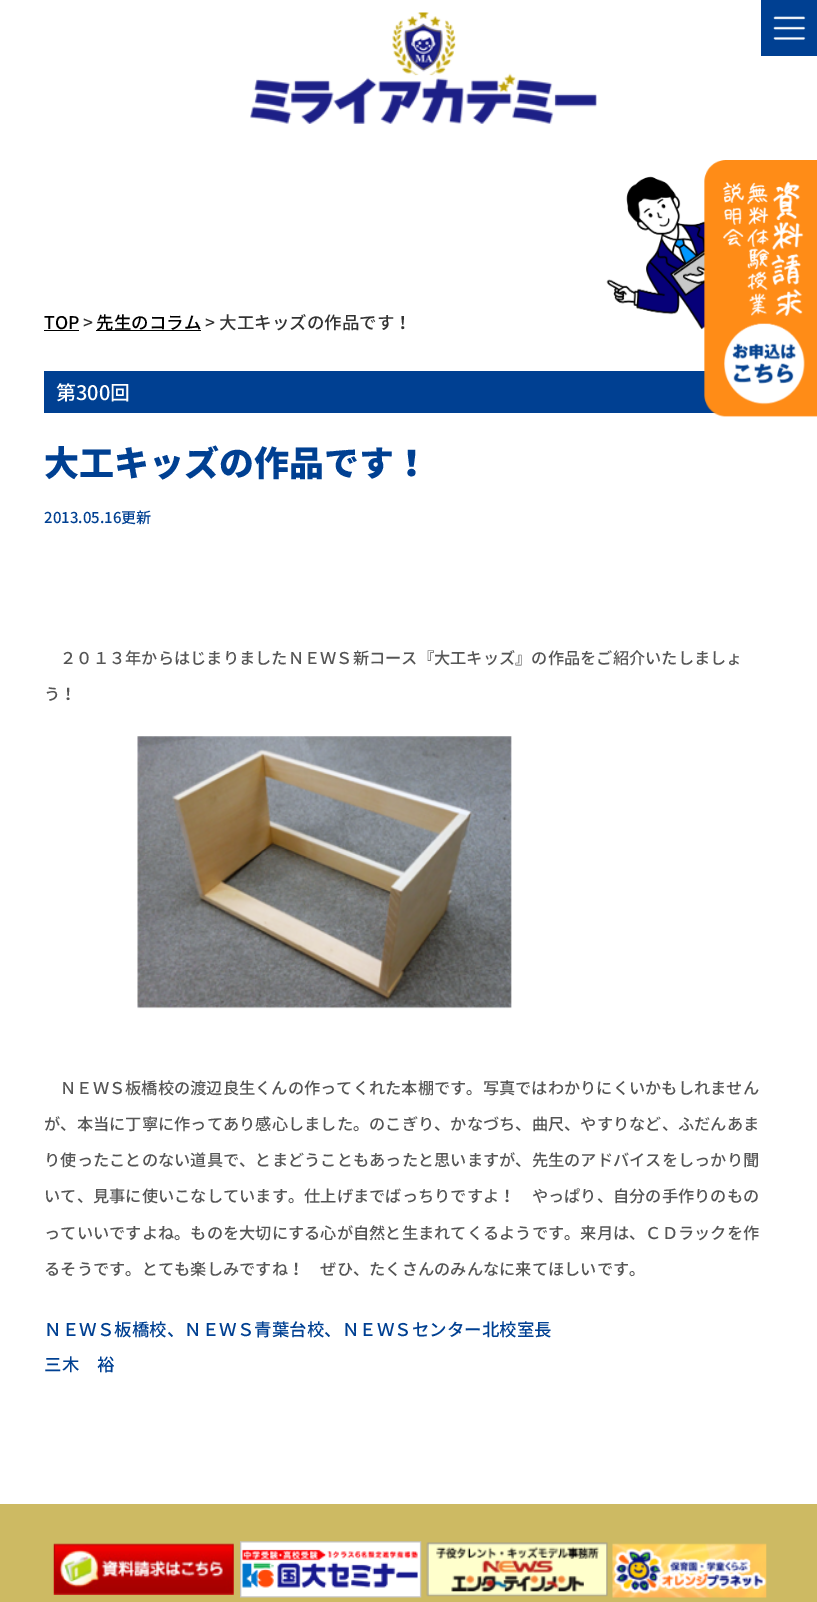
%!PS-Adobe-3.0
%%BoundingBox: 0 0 817 1602
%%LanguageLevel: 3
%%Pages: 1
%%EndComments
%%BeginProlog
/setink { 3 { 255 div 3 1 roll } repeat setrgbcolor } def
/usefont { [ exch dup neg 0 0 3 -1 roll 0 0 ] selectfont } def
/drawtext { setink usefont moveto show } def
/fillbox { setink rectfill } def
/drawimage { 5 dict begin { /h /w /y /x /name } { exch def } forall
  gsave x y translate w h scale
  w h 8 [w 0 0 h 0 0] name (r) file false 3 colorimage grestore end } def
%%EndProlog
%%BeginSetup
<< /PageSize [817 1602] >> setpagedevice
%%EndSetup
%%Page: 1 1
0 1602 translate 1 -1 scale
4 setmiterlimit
0 0 817 1602 255 255 255 fillbox
761 0 56 56 0 64 146 fillbox
(assets/img1.rgb) 773 16 33 24 drawimage
(assets/img2.rgb) 250 12 347 112 drawimage
44 371 673 42 0 64 146 fillbox
(assets/img3.rgb) 606 160 211 257 drawimage
(TOP) 44 329 /NotoSansJP-Medium 17.5 0 0 0 drawtext
44 330 35 1 0 0 0 fillbox
(>) 83 329 /NotoSansJP-Medium 17.5 51 51 51 drawtext
96 330 105 1 0 0 0 fillbox
(先生のコラム) 96 329 /NotoSansJP-Medium 17.5 0 0 0 drawtext
(>) 205 329 /NotoSansJP-Medium 17.5 51 51 51 drawtext
(大工キッズの作品です！) 219 329 /NotoSansJP-Medium 17.5 51 51 51 drawtext
(第300回) 56 400 /NotoSansJP-Medium 20 255 255 255 drawtext
(大工キッズの作品です！) 44 476 /NotoSansJP-Black 35 0 64 146 drawtext
(2013.05.16更新) 44 523 /NotoSansJP-Medium 15 0 64 146 drawtext
(２０１３年からはじまりましたＮＥＷＳ新コース『大工キッズ』の作品をご紹介いたしましょ) 60 664 /NotoSansJP-Medium 16.25 85 85 85 drawtext
(う！) 44 700 /NotoSansJP-Medium 16.25 85 85 85 drawtext
(assets/img4.rgb) 137 736 375 273 drawimage
(ＮＥＷＳ板橋校の渡辺良生くんの作ってくれた本棚です。写真ではわかりにくいかもしれません) 60 1094 /NotoSansJP-Medium 16.25 85 85 85 drawtext
(が、本当に丁寧に作ってあり感心しました。のこぎり、かなづち、曲尺、やすりなど、ふだんあま) 44 1130 /NotoSansJP-Medium 16.25 85 85 85 drawtext
(り使ったことのない道具で、とまどうこともあったと思いますが、先生のアドバイスをしっかり聞) 44 1166 /NotoSansJP-Medium 16.25 85 85 85 drawtext
(いて、見事に使いこなしています。仕上げまでばっちりですよ！　やっぱり、自分の手作りのもの) 44 1202 /NotoSansJP-Medium 16.25 85 85 85 drawtext
(っていいですよね。ものを大切にする心が自然と生まれてくるようです。来月は、ＣＤラックを作) 44 1239 /NotoSansJP-Medium 16.25 85 85 85 drawtext
(るそうです。とても楽しみですね！　ぜひ、たくさんのみんなに来てほしいです。) 44 1275 /NotoSansJP-Medium 16.25 85 85 85 drawtext
(ＮＥＷＳ板橋校、ＮＥＷＳ青葉台校、ＮＥＷＳセンター北校室長) 44 1336 /NotoSansJP-Medium 17.5 0 64 146 drawtext
(三木　裕) 44 1371 /NotoSansJP-Medium 17.5 0 64 146 drawtext
0 1504 817 98 205 186 99 fillbox
(assets/img5.rgb) 53 1543 181 52 drawimage
(assets/img6.rgb) 240 1541 182 57 drawimage
(assets/img7.rgb) 426 1542 182 55 drawimage
(assets/img8.rgb) 612 1543 155 55 drawimage
showpage
%%EOF
